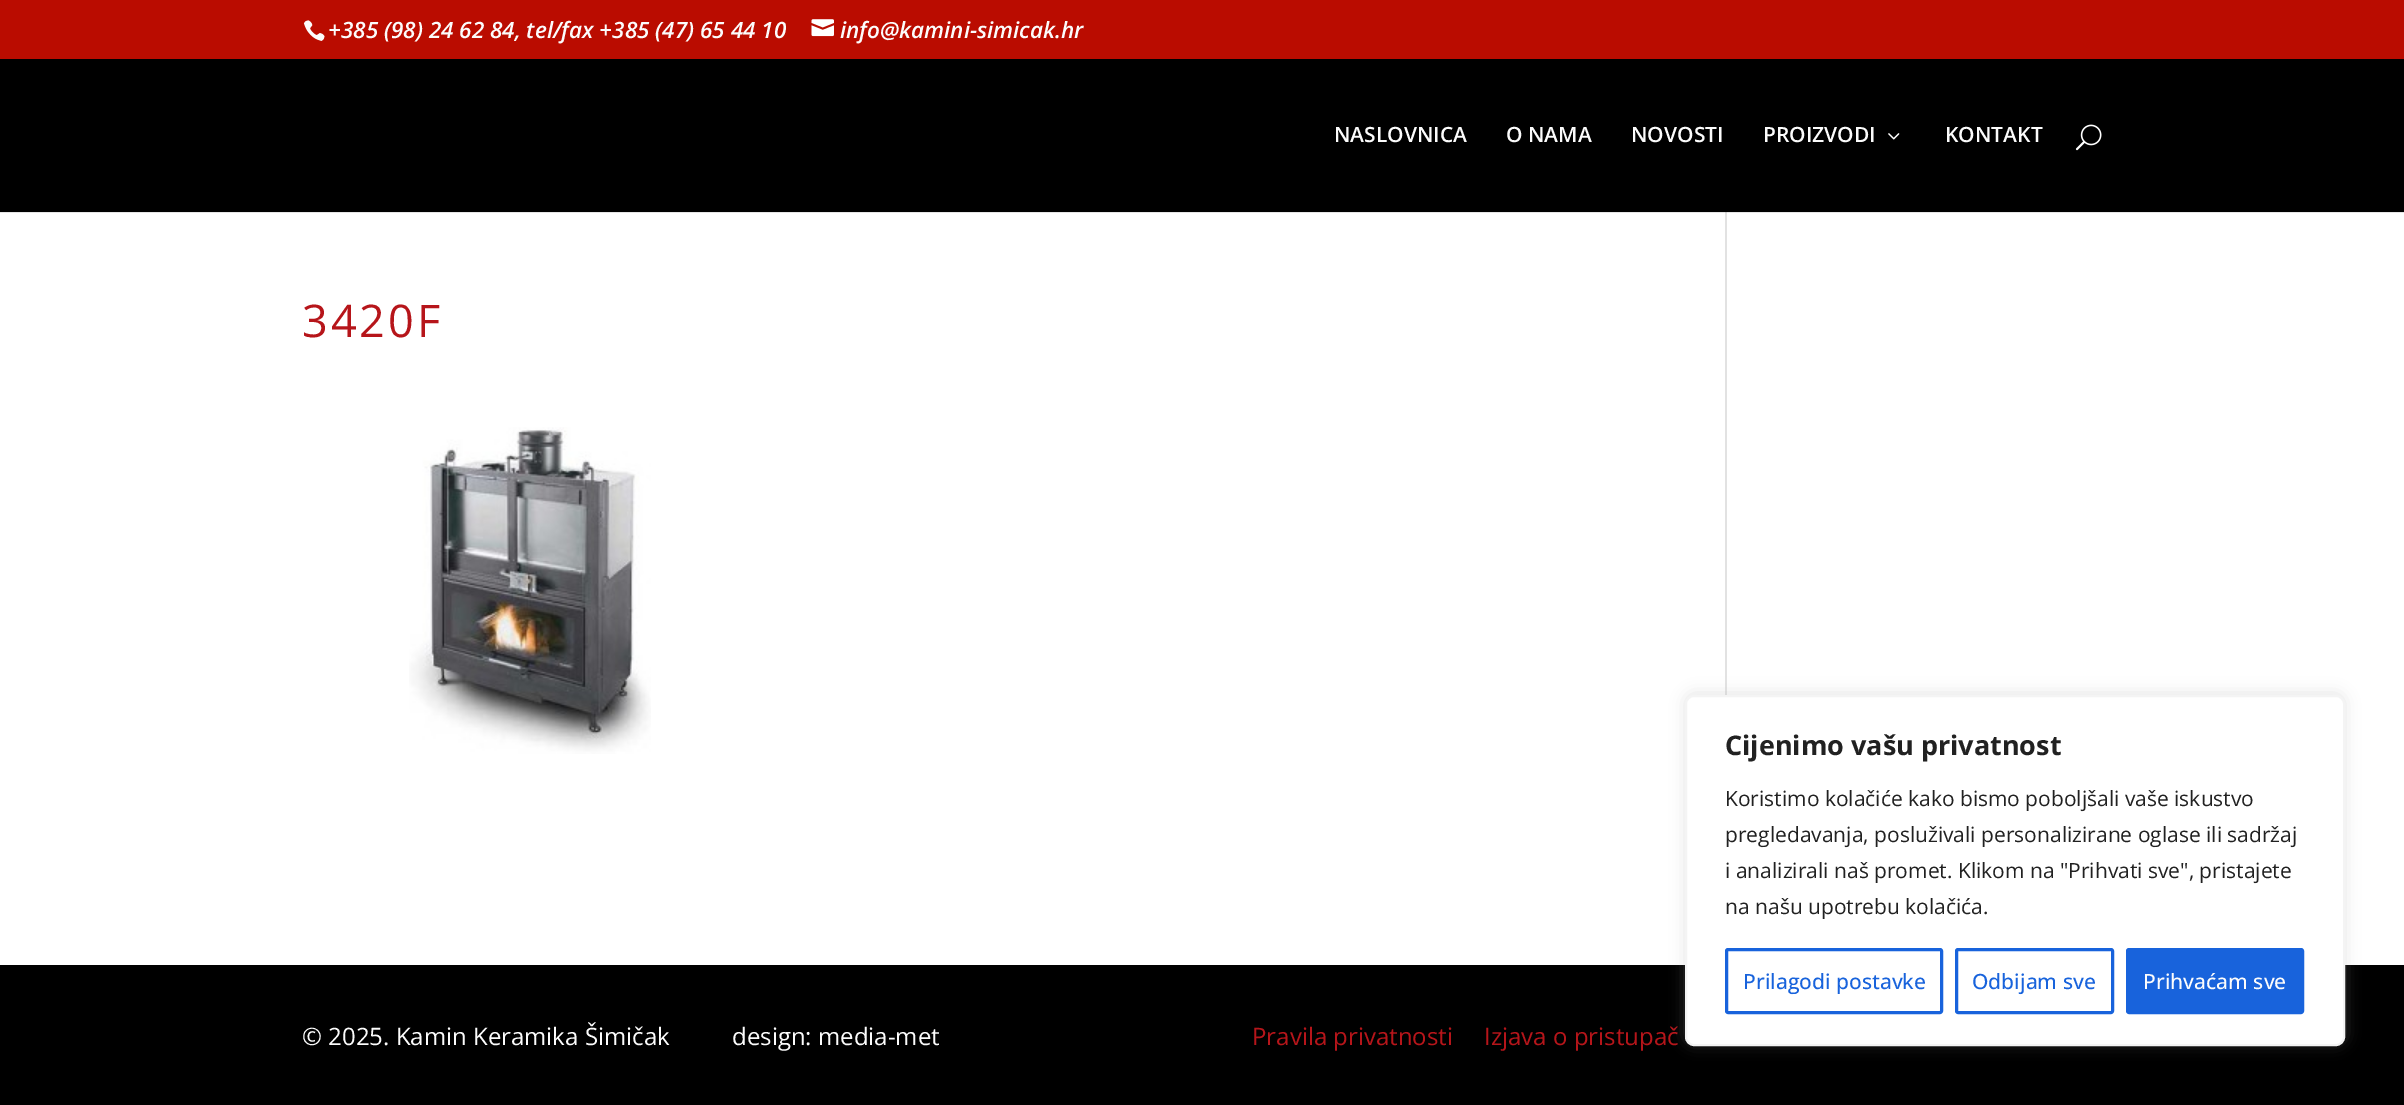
%!PS-Adobe-3.0
%%BoundingBox: 0 0 2404 1105
%%LanguageLevel: 3
%%Pages: 1
%%EndComments
%%BeginProlog
/setink { 3 { 255 div 3 1 roll } repeat setrgbcolor } def
/usefont { [ exch dup neg 0 0 3 -1 roll 0 0 ] selectfont } def
/drawtext { setink usefont moveto show } def
/fillbox { setink rectfill } def
/setalpha { dup .setfillconstantalpha .setstrokeconstantalpha } def
/rrect { 5 dict begin { /r /h /w /y /x } { exch def } forall
  x r add y moveto x w add y 2 copy h add r arct x w add y h add x 1 index r arct
  x y h add x y r arct x y 2 copy exch w add exch r arct closepath end } def
/softshadow { 12 dict begin { /a /b /q /h /w /y /x } { exch def } forall gsave /was 0 def
  9 -2 -9 { dup b mul 4 div /e exch def 1 sub .425 mul 2.718 exch exp 1 add a .99 .min exch div /now exch def
    1 1 now sub 1 was sub div sub setalpha /was now def
    w h .min e 2 mul add 0 gt { x e sub y e sub w e 2 mul add h e 2 mul add
      q e add b .6 mul add w h .min 2 div e add .min 0 .max rrect fill } if } for grestore end } def
/drawimage { 5 dict begin { /h /w /y /x /name } { exch def } forall
  gsave x y translate w h scale
  w h 8 [w 0 0 h 0 0] name (r) file false 3 colorimage grestore end } def
%%EndProlog
%%BeginSetup
<< /PageSize [2404 1105] /PageUsesTransparency true >> setpagedevice
%%EndSetup
%%Page: 1 1
0 .pushpdf14devicefilter
0 1105 translate 1 -1 scale
4 setmiterlimit
0 0 2404 1105 255 255 255 fillbox
0 0 2404 59 186 12 0 fillbox
(assets/img1.rgb) 303 20 22 21 drawimage
(+385 \(98\) 24 62 84, tel/fax +385 \(47\) 65 44 10) 328 38 /OpenSans-SemiBoldItalic 22.5 252 252 252 drawtext
(assets/img2.rgb) 811 19 23 18 drawimage
(info@kamini-simicak.hr) 840 38 /OpenSans-SemiBoldItalic 22.5 252 252 252 drawtext
1725 212 2 483 226 226 226 fillbox
0.1 setalpha
0 0 0 setink
0 212 moveto 0 213 lineto 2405 213 lineto 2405 60 lineto 2404 60 lineto 2404 212 lineto closepath fill
1 setalpha
0 59 2404 153 0 0 0 fillbox
(NASLOVNICA) 1334 142 /OpenSans-SemiBold 21 252 252 252 drawtext
(O NAMA) 1506 142 /OpenSans-SemiBold 21 252 252 252 drawtext
(NOVOSTI) 1631 142 /OpenSans-SemiBold 21 252 252 252 drawtext
(PROIZVODI) 1763 142 /OpenSans-SemiBold 21 252 252 252 drawtext
(assets/img3.rgb) 1888 133 12 7 drawimage
(KONTAKT) 1945 142 /OpenSans-SemiBold 21 252 252 252 drawtext
(assets/img4.rgb) 2075 124 27 27 drawimage
/OpenSans-Regular 45 usefont
182 21 26 setink
302 337 moveto 3 0 (3420F) ashow
(assets/img5.rgb) 409 427 242 327 drawimage
0 965 2404 140 0 0 0 fillbox
(© 2025. Kamin Keramika Šimičak          design: media-met) 302 1045 /OpenSans-Regular 24 252 252 252 drawtext
(Pravila privatnosti) 1252 1045 /OpenSans-Regular 24 182 21 26 drawtext
(Izjava o pristupač) 1484 1045 /OpenSans-Regular 24 182 21 26 drawtext
172 171 171 setink
1685 693 660 351 9 7.5 0.3 softshadow
255 255 255 setink
1686 696 658 349 8 rrect gsave fill grestore
244 244 244 setink
2 setlinewidth
stroke
(Cijenimo vašu privatnost) 1725 755 /OpenSans-Bold 27 33 33 33 drawtext
(Koristimo kolačiće kako bismo poboljšali vaše iskustvo) 1725 806 /OpenSans-Regular 21 33 33 33 drawtext
(pregledavanja, posluživali personalizirane oglase ili sadržaj) 1725 842 /OpenSans-Regular 21 33 33 33 drawtext
(i analizirali naš promet. Klikom na "Prihvati sve", pristajete) 1725 878 /OpenSans-Regular 21 33 33 33 drawtext
(na našu upotrebu kolačića.) 1725 914 /OpenSans-Regular 21 33 33 33 drawtext
24 99 220 setink
3 setlinewidth
1726.5 949.5 215 63 1.5 rrect stroke
(Prilagodi postavke) 1743 989 /OpenSans-Medium 21 24 99 220 drawtext
1956.5 949.5 156 63 1.5 rrect stroke
(Odbijam sve) 1972 989 /OpenSans-Medium 21 24 99 220 drawtext
2127.5 949.5 175 63 1.5 rrect gsave fill grestore
stroke
(Prihvaćam sve) 2143 989 /OpenSans-Medium 21 252 252 252 drawtext
.poppdf14devicefilter showpage
%%EOF
